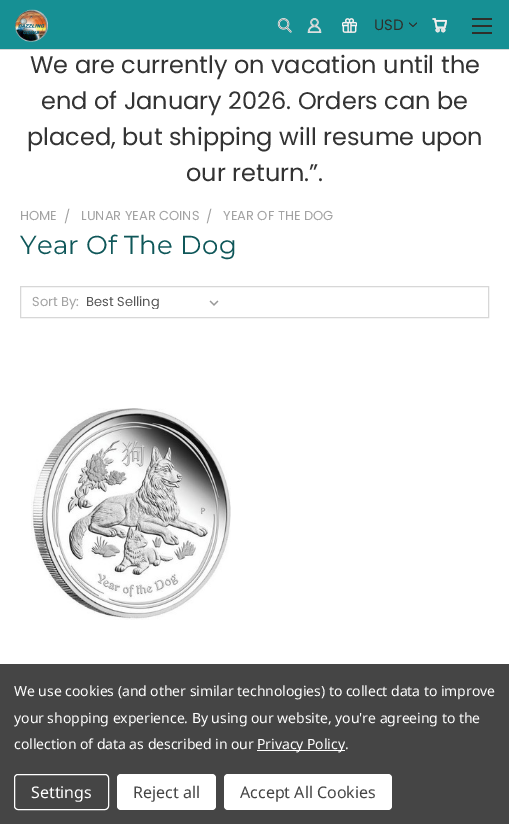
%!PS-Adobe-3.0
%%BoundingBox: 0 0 509 824
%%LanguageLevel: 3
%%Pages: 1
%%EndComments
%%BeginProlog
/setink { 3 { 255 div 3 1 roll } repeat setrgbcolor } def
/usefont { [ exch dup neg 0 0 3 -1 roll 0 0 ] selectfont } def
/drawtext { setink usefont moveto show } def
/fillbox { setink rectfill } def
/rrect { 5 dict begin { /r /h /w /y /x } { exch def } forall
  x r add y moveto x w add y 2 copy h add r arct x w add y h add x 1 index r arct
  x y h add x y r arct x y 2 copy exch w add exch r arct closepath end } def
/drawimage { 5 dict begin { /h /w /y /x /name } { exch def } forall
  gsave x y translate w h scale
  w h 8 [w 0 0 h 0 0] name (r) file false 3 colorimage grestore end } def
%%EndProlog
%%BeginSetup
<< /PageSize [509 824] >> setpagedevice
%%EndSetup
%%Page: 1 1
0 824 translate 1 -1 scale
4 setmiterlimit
0 0 509 824 255 255 255 fillbox
0 0 509 49 22 144 148 fillbox
0 49 509 1 215 215 215 fillbox
(assets/img1.rgb) 15 9 33 33 drawimage
(assets/img2.rgb) 277 18 15 15 drawimage
(assets/img3.rgb) 307 18 15 15 drawimage
(assets/img4.rgb) 342 18 15 15 drawimage
(USD) 374 30 /Poppins-Regular 15 47 47 43 drawtext
(assets/img5.rgb) 409 22 8 5 drawimage
(assets/img6.rgb) 432 18 15 15 drawimage
472 25 20 2 47 47 43 fillbox
472 18 20 2 47 47 43 fillbox
472 32 20 2 47 47 43 fillbox
(We are currently on vacation until the) 30 73 /Poppins-Regular 24 51 51 51 drawtext
(end of January 2026. Orders can be) 41 109 /Poppins-Regular 24 51 51 51 drawtext
(placed, but shipping will resume upon) 27 145 /Poppins-Regular 24 51 51 51 drawtext
(our return.”.) 186 181 /Poppins-Regular 24 51 51 51 drawtext
(HOME) 20 220 /Poppins-Regular 13 162 162 162 drawtext
(/) 64 221 /Poppins-Regular 13 162 162 162 drawtext
(LUNAR YEAR COINS) 81 220 /Poppins-Regular 13 162 162 162 drawtext
(/) 206 221 /Poppins-Regular 13 162 162 162 drawtext
(YEAR OF THE DOG) 223 220 /Poppins-Regular 13 162 162 162 drawtext
/Montserrat-Thin 26 usefont
15 87 89 setink
20 254 moveto 0.25 0 (Year Of The Dog) ashow
215 215 215 setink
20.5 286.5 468 31 rectstroke
(Sort By:) 32 306 /Poppins-Regular 13 162 162 162 drawtext
(assets/img7.rgb) 209 300 10 6 drawimage
gsave
86 295 116 14 rectclip
(Best Selling) 86 306 /Poppins-Regular 13 85 85 85 drawtext
grestore
(assets/img8.rgb) 31 408 200 212 drawimage
0 664 509 160 69 69 69 fillbox
/NotoSans-Regular 14 usefont
255 255 255 setink
14 696 moveto -0.05 0 (We use cookies \(and other similar technologies\) to collect data to improve) ashow
14 723 moveto -0.05 0 (your shopping experience. By using our website, you're agreeing to the) ashow
14 749 moveto -0.05 0 (collection of data as described in our) ashow
257 750 88 1 255 255 255 fillbox
257 749 moveto -0.05 0 (Privacy Policy.) ashow
14.5 774.5 94 35 3.5 rrect stroke
(Settings) 31 798 /NotoSans-Regular 16 255 255 255 drawtext
117 774 99 36 4 rrect fill
(Reject all) 133 798 /NotoSans-Regular 16 69 69 69 drawtext
255 255 255 setink
224 774 168 36 4 rrect fill
(Accept All Cookies) 240 798 /NotoSans-Regular 16 69 69 69 drawtext
showpage
%%EOF
